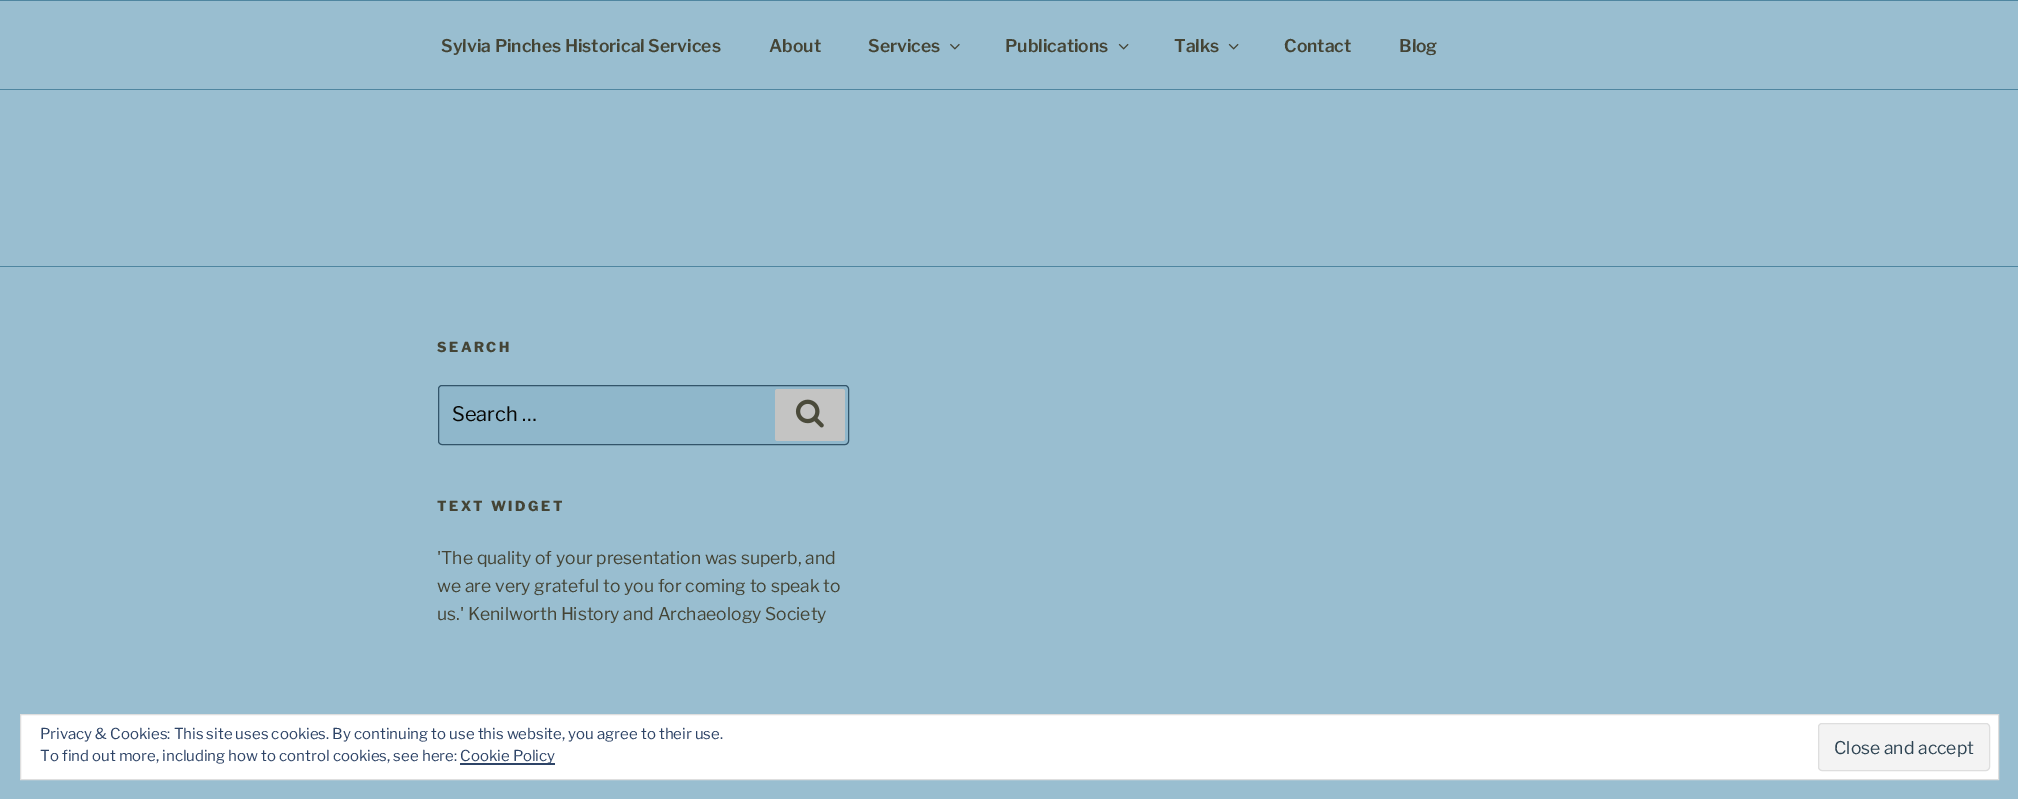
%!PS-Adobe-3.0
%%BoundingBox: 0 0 2018 799
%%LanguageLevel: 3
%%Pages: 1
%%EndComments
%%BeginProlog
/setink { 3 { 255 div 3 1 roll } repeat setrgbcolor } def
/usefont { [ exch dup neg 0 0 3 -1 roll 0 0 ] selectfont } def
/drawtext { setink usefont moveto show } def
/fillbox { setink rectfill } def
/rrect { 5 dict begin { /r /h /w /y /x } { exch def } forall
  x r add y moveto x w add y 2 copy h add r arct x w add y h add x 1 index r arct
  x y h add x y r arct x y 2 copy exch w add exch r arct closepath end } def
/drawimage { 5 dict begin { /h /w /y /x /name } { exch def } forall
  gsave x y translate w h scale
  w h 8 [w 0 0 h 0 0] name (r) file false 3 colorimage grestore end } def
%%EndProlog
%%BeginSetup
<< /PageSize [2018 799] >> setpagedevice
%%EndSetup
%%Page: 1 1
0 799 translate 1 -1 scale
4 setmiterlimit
0 0 2018 799 153 190 208 fillbox
0 0 2018 1 79 134 160 fillbox
0 89 2018 1 79 134 160 fillbox
(Sylvia Pinches Historical Services) 441 52 /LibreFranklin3-Thin 17.5 68 68 53 drawtext
(About) 769 52 /LibreFranklin3-Thin 17.5 68 68 53 drawtext
(Services) 868 52 /LibreFranklin3-Thin 17.5 68 68 53 drawtext
(assets/img1.rgb) 950 43 10 7 drawimage
(Publications) 1005 52 /LibreFranklin3-Thin 17.5 68 68 53 drawtext
(assets/img2.rgb) 1118 43 11 7 drawimage
(Talks) 1174 52 /LibreFranklin3-Thin 17.5 68 68 53 drawtext
(assets/img2.rgb) 1228 43 11 7 drawimage
(Contact) 1284 52 /LibreFranklin3-Thin 17.5 68 68 53 drawtext
(Blog) 1399 52 /LibreFranklin3-Thin 17.5 68 68 53 drawtext
0 266 2018 1 79 134 160 fillbox
/LibreFranklin-Thin 13.75 usefont
68 68 53 setink
437 352 moveto 2.5 0 (SEARCH) ashow
143 183 203 setink
438.5 385.5 410 59 3.5 rrect gsave fill grestore
51 85 106 setink
stroke
(Search …) 452 421 /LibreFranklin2-Thin 20 8 8 6 drawtext
196 196 195 setink
775 389 70 52 2.5 rrect fill
(assets/img3.rgb) 795 399 29 29 drawimage
/LibreFranklin-Thin 13.75 usefont
68 68 53 setink
437 511 moveto 2.5 0 (TEXT WIDGET) ashow
('The quality of your presentation was superb, and) 437 564 /LibreFranklin2-Thin 17.5 68 68 53 drawtext
(we are very grateful to you for coming to speak to) 437 592 /LibreFranklin2-Thin 17.5 68 68 53 drawtext
(us.' Kenilworth History and Archaeology Society) 437 620 /LibreFranklin2-Thin 17.5 68 68 53 drawtext
255 255 255 setink
20.5 714.5 moveto 1998.5 714.5 lineto 1998.5 779.5 lineto 20.5 779.5 lineto closepath gsave fill grestore
222 222 222 setink
stroke
(Privacy & Cookies: This site uses cookies. By continuing to use this website, you agree to their use.) 40 739 /LibreFranklin2-Thin 15 46 68 103 drawtext
(To find out more, including how to control cookies, see here:) 40 761 /LibreFranklin2-Thin 15 46 68 103 drawtext
460 763 95 2 46 68 103 fillbox
(Cookie Policy) 460 761 /LibreFranklin2-Thin 15 46 68 103 drawtext
243 243 243 setink
1818.5 723.5 171 47 3.5 rrect gsave fill grestore
222 222 222 setink
stroke
(Close and accept) 1834 754 /LibreFranklin2-Thin 17.5 46 68 83 drawtext
showpage
%%EOF
